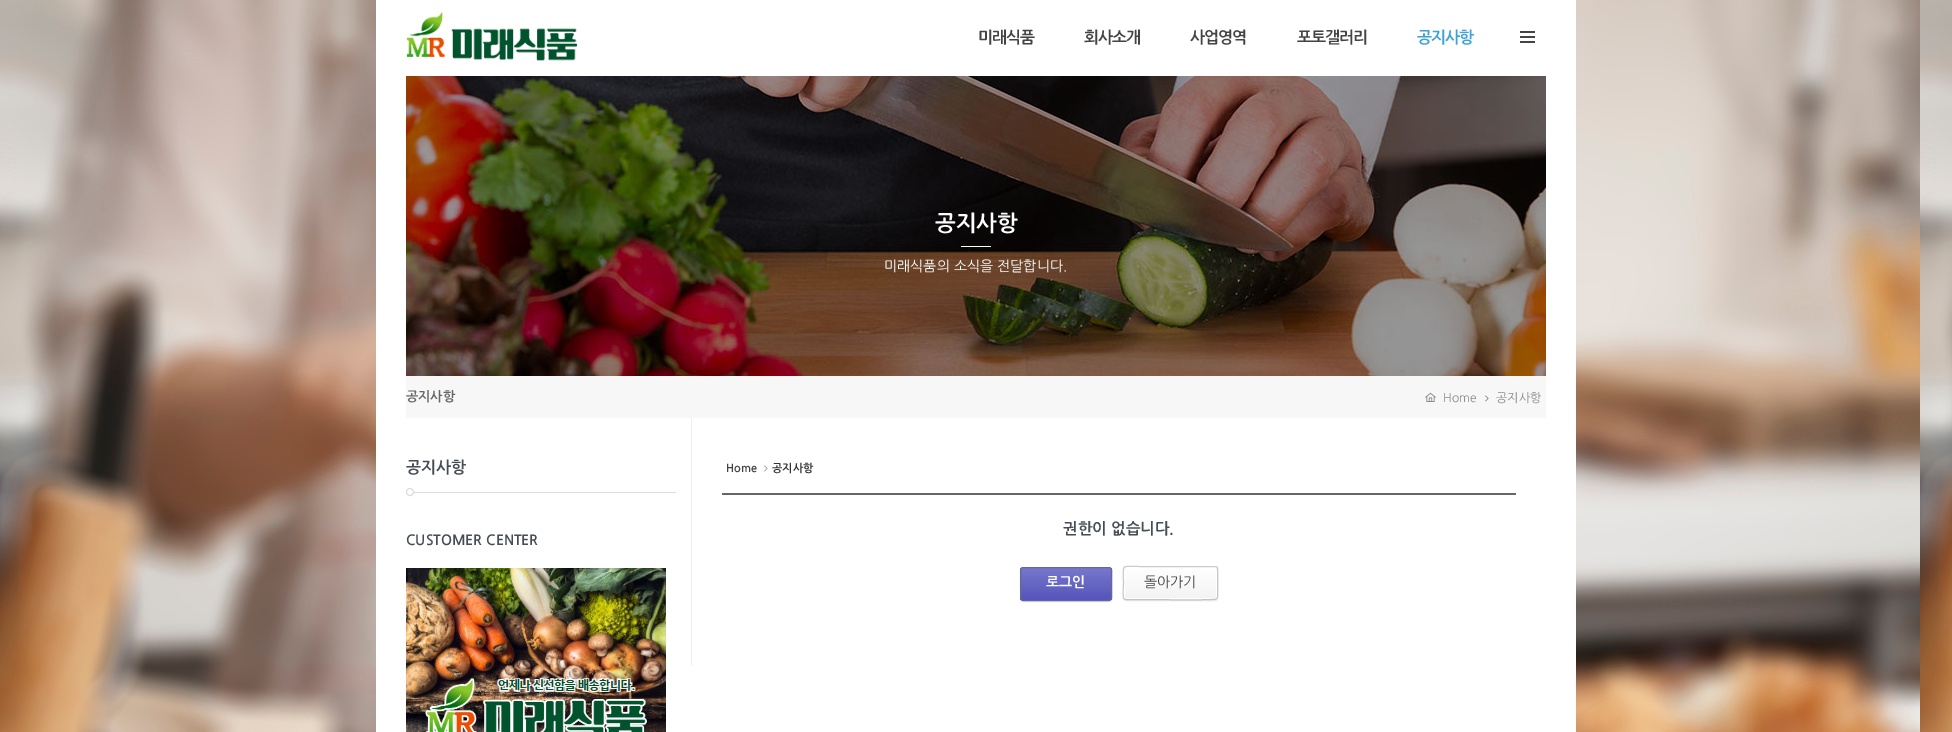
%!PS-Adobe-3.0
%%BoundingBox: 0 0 1952 732
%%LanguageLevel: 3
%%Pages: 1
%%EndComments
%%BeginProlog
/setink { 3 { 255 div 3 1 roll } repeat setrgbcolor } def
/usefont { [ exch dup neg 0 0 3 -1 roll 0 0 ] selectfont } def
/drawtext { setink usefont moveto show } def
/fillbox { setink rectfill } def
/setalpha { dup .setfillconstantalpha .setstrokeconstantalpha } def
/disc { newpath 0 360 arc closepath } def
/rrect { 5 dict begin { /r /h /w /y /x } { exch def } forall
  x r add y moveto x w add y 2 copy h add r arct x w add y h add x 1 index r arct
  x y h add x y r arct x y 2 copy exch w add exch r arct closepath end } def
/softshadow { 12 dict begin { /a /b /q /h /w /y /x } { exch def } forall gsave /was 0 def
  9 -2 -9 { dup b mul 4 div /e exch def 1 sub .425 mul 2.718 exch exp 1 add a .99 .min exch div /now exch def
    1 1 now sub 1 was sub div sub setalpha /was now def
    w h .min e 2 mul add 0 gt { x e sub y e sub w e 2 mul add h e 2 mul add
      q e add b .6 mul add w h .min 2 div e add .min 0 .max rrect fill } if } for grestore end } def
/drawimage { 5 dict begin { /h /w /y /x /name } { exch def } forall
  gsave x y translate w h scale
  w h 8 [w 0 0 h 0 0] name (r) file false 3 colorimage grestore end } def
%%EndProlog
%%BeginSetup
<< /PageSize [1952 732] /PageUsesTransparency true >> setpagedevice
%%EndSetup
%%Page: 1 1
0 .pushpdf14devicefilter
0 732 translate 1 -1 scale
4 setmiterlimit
0 0 1952 732 255 255 255 fillbox
(assets/img1.rgb) 0 0 1952 732 drawimage
376 0 1200 732 255 255 255 fillbox
(assets/img2.rgb) 406 12 172 49 drawimage
/NanumGothic-Bold 16 usefont
68 68 68 setink
978 43 moveto -1 0 (미래식품) ashow
1084 43 moveto -1 0 (회사소개) ashow
1190 43 moveto -1 0 (사업영역) ashow
1297 43 moveto -1 0 (포토갤러리) ashow
60 163 218 setink
1417 43 moveto -1 0 (공지사항) ashow
1520 36 15 2 68 68 68 fillbox
1520 31 15 2 68 68 68 fillbox
1520 41 15 2 68 68 68 fillbox
(assets/img3.rgb) 406 76 1140 300 drawimage
(공지사항) 935 231 /NanumGothic-Bold 22 255 255 255 drawtext
961 246 30 1 255 255 255 fillbox
(미래식품의 소식을 전달합니다.) 884 271 /NanumGothic-Regular 14 255 255 255 drawtext
406 376 1140 42 247 247 247 fillbox
(공지사항) 406 401 /NanumGothic-Bold 13 102 102 102 drawtext
(assets/img4.rgb) 1425 392 11 10 drawimage
(Home) 1443 402 /NanumGothic-Regular 12 136 136 136 drawtext
(assets/img5.rgb) 1485 395 4 7 drawimage
(공지사항) 1496 402 /NanumGothic-Regular 12 136 136 136 drawtext
406 492 270 1 221 221 221 fillbox
(공지사항) 406 473 /NanumGothic-Bold 16 71 77 86 drawtext
255 255 255 setink
410 492 3.5 disc gsave fill grestore
221 221 221 setink
stroke
(CUSTOMER CENTER) 406 545 /NanumGothic-Bold 14 71 77 86 drawtext
(assets/img6.rgb) 406 568 260 164 drawimage
691 418 1 247 238 238 238 fillbox
(Home) 726 472 /NanumGothic-Bold 11 68 68 68 drawtext
(assets/img7.rgb) 764 465 4 7 drawimage
(공지사항) 772 472 /NanumGothic-Bold 11 51 51 51 drawtext
722 493 794 2 102 102 102 fillbox
(권한이 없습니다.) 1063 534 /NanumGothic-Bold 15.5 71 77 86 drawtext
0 0 0 setink
1020 568 92 34 3 0.5 0.1 softshadow
gsave
1020 567 92 34 3 rrect clip newpath
gsave 1020 568 moveto 1112 568 lineto 1112 600 lineto 1020 600 lineto closepath clip newpath
<< /ShadingType 2 /ColorSpace /DeviceRGB /Coords [1066 568 1066 600] /Extend [true true] /Function << /FunctionType 2 /Domain [0 1] /C0 [0.467 0.467 0.8] /C1 [0.333 0.333 0.733] /N 1 >> >> shfill grestore
grestore
102 102 153 setink
1020.5 567.5 91 33 2.5 rrect stroke
(로그인) 1046 587 /NanumGothic-Bold 14 255 255 255 drawtext
0 0 0 setink
1123 567 95 34 3 0.5 0.1 softshadow
gsave
1123 566 95 34 3 rrect clip newpath
gsave 1123 566 moveto 1218 566 lineto 1218 567 lineto 1123 567 lineto closepath clip newpath
<< /ShadingType 2 /ColorSpace /DeviceRGB /Coords [1171 535 1171 567] /Extend [true true] /Function << /FunctionType 2 /Domain [0 1] /C0 [1 1 1] /C1 [0.953 0.953 0.953] /N 1 >> >> shfill grestore
gsave 1123 567 moveto 1218 567 lineto 1218 599 lineto 1123 599 lineto closepath clip newpath
<< /ShadingType 2 /ColorSpace /DeviceRGB /Coords [1171 567 1171 599] /Extend [true true] /Function << /FunctionType 2 /Domain [0 1] /C0 [1 1 1] /C1 [0.953 0.953 0.953] /N 1 >> >> shfill grestore
gsave 1123 599 moveto 1218 599 lineto 1218 600 lineto 1123 600 lineto closepath clip newpath
<< /ShadingType 2 /ColorSpace /DeviceRGB /Coords [1171 599 1171 631] /Extend [true true] /Function << /FunctionType 2 /Domain [0 1] /C0 [1 1 1] /C1 [0.953 0.953 0.953] /N 1 >> >> shfill grestore
grestore
255 255 255 setink
1124.5 567.5 92 31 1.5 rrect stroke
198 198 198 setink
1217 567 moveto 1217 567.5 1217.5 568.5 1217.5 569 curveto 1217.5 597 lineto 1217.5 597.5 1217 598.5 1217 599 curveto stroke
195 195 195 setink
1217 599 moveto 1216.5 599 lineto 1214.5 600.5 1148.5 599.5 1141 599.5 curveto 1126 599.5 lineto 1124 599 lineto stroke
204 204 204 setink
1124 599 moveto 1122.5 597 1123.5 585.5 1123.5 583 curveto 1123.5 563 1120 566.5 1141 566.5 curveto 1215 566.5 lineto 1217 567 lineto stroke
(돌아가기) 1144 587 /NanumGothic-Regular 14 68 68 68 drawtext
.poppdf14devicefilter showpage
%%EOF
